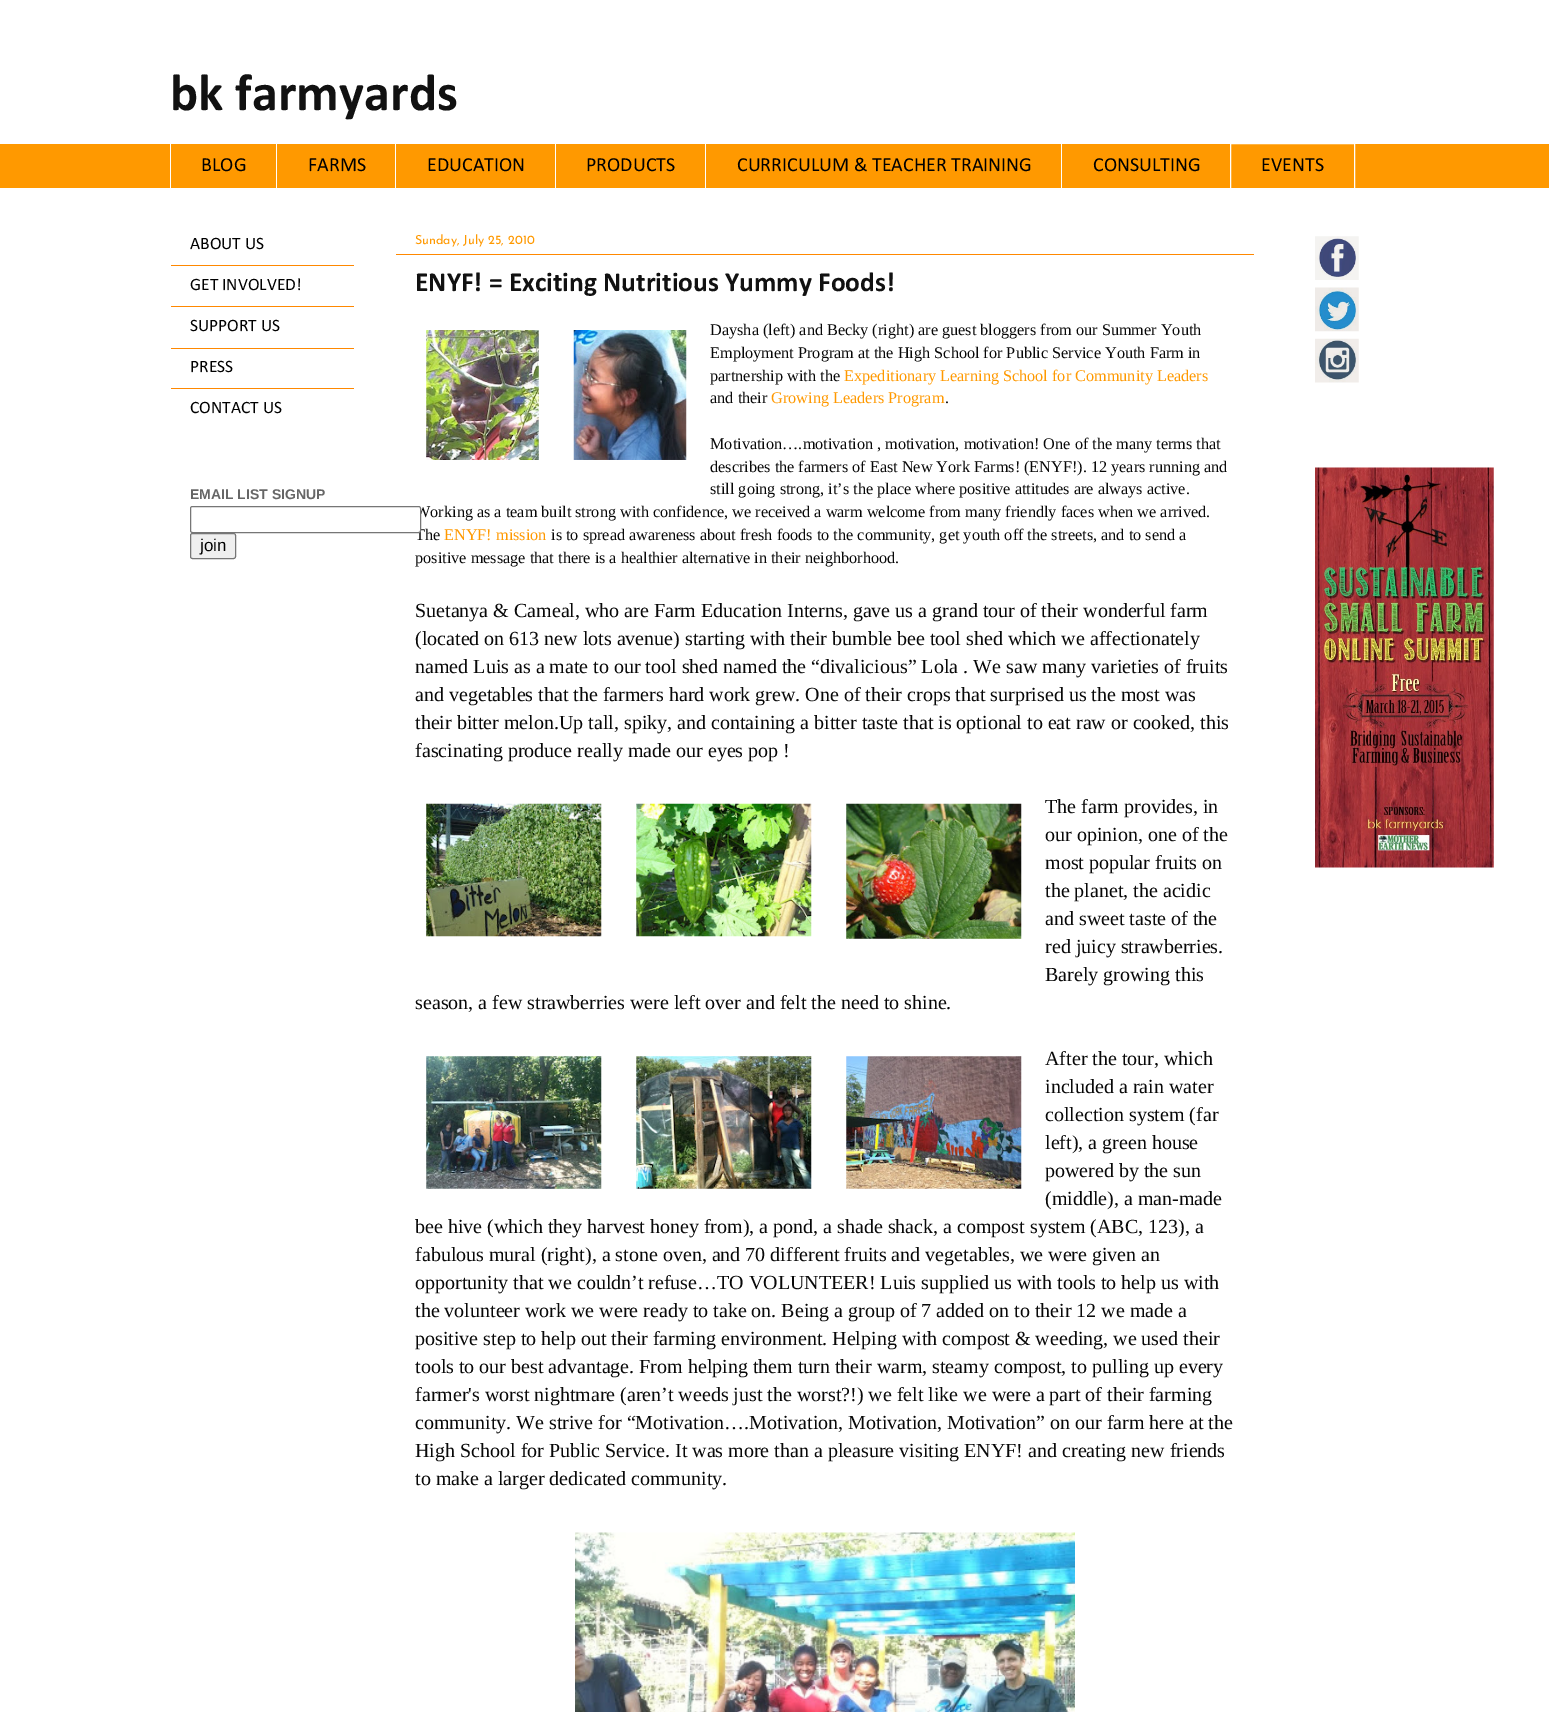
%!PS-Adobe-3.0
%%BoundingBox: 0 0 1549 1712
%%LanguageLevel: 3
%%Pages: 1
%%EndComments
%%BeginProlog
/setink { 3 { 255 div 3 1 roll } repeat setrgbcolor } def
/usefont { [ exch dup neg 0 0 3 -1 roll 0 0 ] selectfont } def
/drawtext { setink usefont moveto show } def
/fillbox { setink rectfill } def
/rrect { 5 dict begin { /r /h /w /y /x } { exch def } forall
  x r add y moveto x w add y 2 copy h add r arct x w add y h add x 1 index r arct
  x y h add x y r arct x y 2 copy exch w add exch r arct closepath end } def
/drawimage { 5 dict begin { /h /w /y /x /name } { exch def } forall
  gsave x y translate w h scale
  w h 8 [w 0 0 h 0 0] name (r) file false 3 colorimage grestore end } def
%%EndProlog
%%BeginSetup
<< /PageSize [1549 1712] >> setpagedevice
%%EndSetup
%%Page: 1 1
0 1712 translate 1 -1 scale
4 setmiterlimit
0 0 1549 1712 255 255 255 fillbox
(bk farmyards) 170 110 /Calibri-Bold 52.5 17 17 17 drawtext
0 144 1549 44 255 153 0 fillbox
170 143 1 46 255 255 255 fillbox
(BLOG) 201 171 /Calibri-Regular 20 0 0 0 drawtext
276 143 1 46 255 255 255 fillbox
(FARMS) 308 171 /Calibri-Regular 20 0 0 0 drawtext
395 143 1 46 255 255 255 fillbox
(EDUCATION) 427 171 /Calibri-Regular 20 0 0 0 drawtext
555 143 1 46 255 255 255 fillbox
(PRODUCTS) 586 171 /Calibri-Regular 20 0 0 0 drawtext
705 143 1 46 255 255 255 fillbox
(CURRICULUM & TEACHER TRAINING) 737 171 /Calibri-Regular 20 0 0 0 drawtext
1061 143 1 46 255 255 255 fillbox
(CONSULTING) 1093 171 /Calibri-Regular 20 0 0 0 drawtext
255 255 255 setink
1230.5 143.5 124 45 rectstroke
(EVENTS) 1261 171 /Calibri-Regular 20 0 0 0 drawtext
171 265 183 1 255 136 0 fillbox
(ABOUT US) 190 249 /Calibri-Regular 17.5 0 0 0 drawtext
171 306 183 1 255 136 0 fillbox
(GET INVOLVED!) 190 290 /Calibri-Regular 17.5 0 0 0 drawtext
171 348 183 1 255 136 0 fillbox
(SUPPORT US) 190 331 /Calibri-Regular 17.5 0 0 0 drawtext
171 388 183 1 255 136 0 fillbox
(PRESS) 190 372 /Calibri-Regular 17.5 0 0 0 drawtext
(CONTACT US) 190 413 /Calibri-Regular 17.5 0 0 0 drawtext
(EMAIL LIST SIGNUP) 190 499 /LiberationSans-Bold 14 102 102 102 drawtext
(Working as a team built strong with confidence, we received a warm welcome from many friendly faces when we arrived.) 415 517 /LiberationSerif-Regular 16.25 8 8 8 drawtext
(The) 415 540 /LiberationSerif-Regular 16.25 8 8 8 drawtext
255 255 255 setink
190.5 506.5 230 26 2 rrect gsave fill grestore
118 118 118 setink
stroke
239 239 239 setink
190.5 533.5 45 25 2 rrect gsave fill grestore
118 118 118 setink
stroke
(join) 200 551 /LiberationSans-Regular 17 0 0 0 drawtext
396 254 858 1 255 136 0 fillbox
(Sunday, July 25, 2010) 415 244 /JosefinSans-Thin 12.5 255 153 0 drawtext
(ENYF! = Exciting Nutritious Yummy Foods!) 415 291 /Calibri-Bold 27.5 17 17 17 drawtext
(assets/img1.rgb) 426 330 113 130 drawimage
(assets/img2.rgb) 573 330 114 130 drawimage
(Daysha \(left\) and Becky \(right\) are guest bloggers from our Summer Youth) 710 335 /LiberationSerif-Regular 16.25 8 8 8 drawtext
(Employment Program at the High School for Public Service Youth Farm in) 710 358 /LiberationSerif-Regular 16.25 8 8 8 drawtext
(partnership with the) 710 381 /LiberationSerif-Regular 16.25 8 8 8 drawtext
(Expeditionary Learning School for Community Leaders) 844 381 /LiberationSerif-Regular 16.25 255 153 0 drawtext
(and their) 710 403 /LiberationSerif-Regular 16.25 8 8 8 drawtext
(Growing Leaders Program) 771 403 /LiberationSerif-Regular 16.25 255 153 0 drawtext
(.) 945 403 /LiberationSerif-Regular 16.25 8 8 8 drawtext
(Motivation….motivation , motivation, motivation! One of the many terms that) 710 449 /LiberationSerif-Regular 16.25 8 8 8 drawtext
(describes the farmers of East New York Farms! \(ENYF!\). 12 years running and) 710 472 /LiberationSerif-Regular 16.25 8 8 8 drawtext
(still going strong, it’s the place where positive attitudes are always active.) 710 494 /LiberationSerif-Regular 16.25 8 8 8 drawtext
(ENYF! mission) 444 540 /LiberationSerif-Regular 16.25 255 153 0 drawtext
(is to spread awareness about fresh foods to the community, get youth off the streets, and to send a) 551 540 /LiberationSerif-Regular 16.25 8 8 8 drawtext
(positive message that there is a healthier alternative in their neighborhood.) 415 563 /LiberationSerif-Regular 16.25 8 8 8 drawtext
(Suetanya & Cameal, who are Farm Education Interns, gave us a grand tour of their wonderful farm) 415 617 /LiberationSerif-Regular 20 8 8 8 drawtext
(\(located on 613 new lots avenue\) starting with their bumble bee tool shed which we affectionately) 415 645 /LiberationSerif-Regular 20 8 8 8 drawtext
(named Luis as a mate to our tool shed named the “divalicious” Lola . We saw many varieties of fruits) 415 673 /LiberationSerif-Regular 20 8 8 8 drawtext
(and vegetables that the farmers hard work grew. One of their crops that surprised us the most was) 415 701 /LiberationSerif-Regular 20 8 8 8 drawtext
(their bitter melon.Up tall, spiky, and containing a bitter taste that is optional to eat raw or cooked, this) 415 729 /LiberationSerif-Regular 20 8 8 8 drawtext
(fascinating produce really made our eyes pop !) 415 757 /LiberationSerif-Regular 20 8 8 8 drawtext
(The farm provides, in) 1045 813 /LiberationSerif-Regular 20 8 8 8 drawtext
(our opinion, one of the) 1045 841 /LiberationSerif-Regular 20 8 8 8 drawtext
(most popular fruits on) 1045 869 /LiberationSerif-Regular 20 8 8 8 drawtext
(the planet, the acidic) 1045 897 /LiberationSerif-Regular 20 8 8 8 drawtext
(and sweet taste of the) 1045 925 /LiberationSerif-Regular 20 8 8 8 drawtext
(red juicy strawberries.) 1045 953 /LiberationSerif-Regular 20 8 8 8 drawtext
(Barely growing this) 1045 981 /LiberationSerif-Regular 20 8 8 8 drawtext
(season, a few strawberries were left over and felt the need to shine.) 415 1009 /LiberationSerif-Regular 20 8 8 8 drawtext
(assets/img3.rgb) 426 803 176 134 drawimage
(assets/img4.rgb) 636 803 176 134 drawimage
(assets/img5.rgb) 846 803 176 136 drawimage
(After the tour, which) 1045 1065 /LiberationSerif-Regular 20 8 8 8 drawtext
(included a rain water) 1045 1093 /LiberationSerif-Regular 20 8 8 8 drawtext
(collection system \(far) 1045 1121 /LiberationSerif-Regular 20 8 8 8 drawtext
(left\), a green house) 1045 1149 /LiberationSerif-Regular 20 8 8 8 drawtext
(powered by the sun) 1045 1177 /LiberationSerif-Regular 20 8 8 8 drawtext
(\(middle\), a man-made) 1045 1205 /LiberationSerif-Regular 20 8 8 8 drawtext
(bee hive \(which they harvest honey from\), a pond, a shade shack, a compost system \(ABC, 123\), a) 415 1233 /LiberationSerif-Regular 20 8 8 8 drawtext
(fabulous mural \(right\), a stone oven, and 70 different fruits and vegetables, we were given an) 415 1261 /LiberationSerif-Regular 20 8 8 8 drawtext
(opportunity that we couldn’t refuse…TO VOLUNTEER! Luis supplied us with tools to help us with) 415 1289 /LiberationSerif-Regular 20 8 8 8 drawtext
(the volunteer work we were ready to take on. Being a group of 7 added on to their 12 we made a) 415 1317 /LiberationSerif-Regular 20 8 8 8 drawtext
(positive step to help out their farming environment. Helping with compost & weeding, we used their) 415 1345 /LiberationSerif-Regular 20 8 8 8 drawtext
(tools to our best advantage. From helping them turn their warm, steamy compost, to pulling up every) 415 1373 /LiberationSerif-Regular 20 8 8 8 drawtext
(farmer's worst nightmare \(aren’t weeds just the worst?!\) we felt like we were a part of their farming) 415 1401 /LiberationSerif-Regular 20 8 8 8 drawtext
(community. We strive for “Motivation….Motivation, Motivation, Motivation” on our farm here at the) 415 1429 /LiberationSerif-Regular 20 8 8 8 drawtext
(High School for Public Service. It was more than a pleasure visiting ENYF! and creating new friends) 415 1457 /LiberationSerif-Regular 20 8 8 8 drawtext
(to make a larger dedicated community.) 415 1485 /LiberationSerif-Regular 20 8 8 8 drawtext
(assets/img6.rgb) 426 1056 176 133 drawimage
(assets/img7.rgb) 636 1056 176 133 drawimage
(assets/img8.rgb) 846 1056 176 133 drawimage
(assets/img9.rgb) 575 1532 500 180 drawimage
(assets/img10.rgb) 1315 236 44 44 drawimage
(assets/img11.rgb) 1315 287 44 45 drawimage
(assets/img12.rgb) 1315 338 44 45 drawimage
(assets/img13.rgb) 1315 467 179 401 drawimage
showpage
%%EOF
